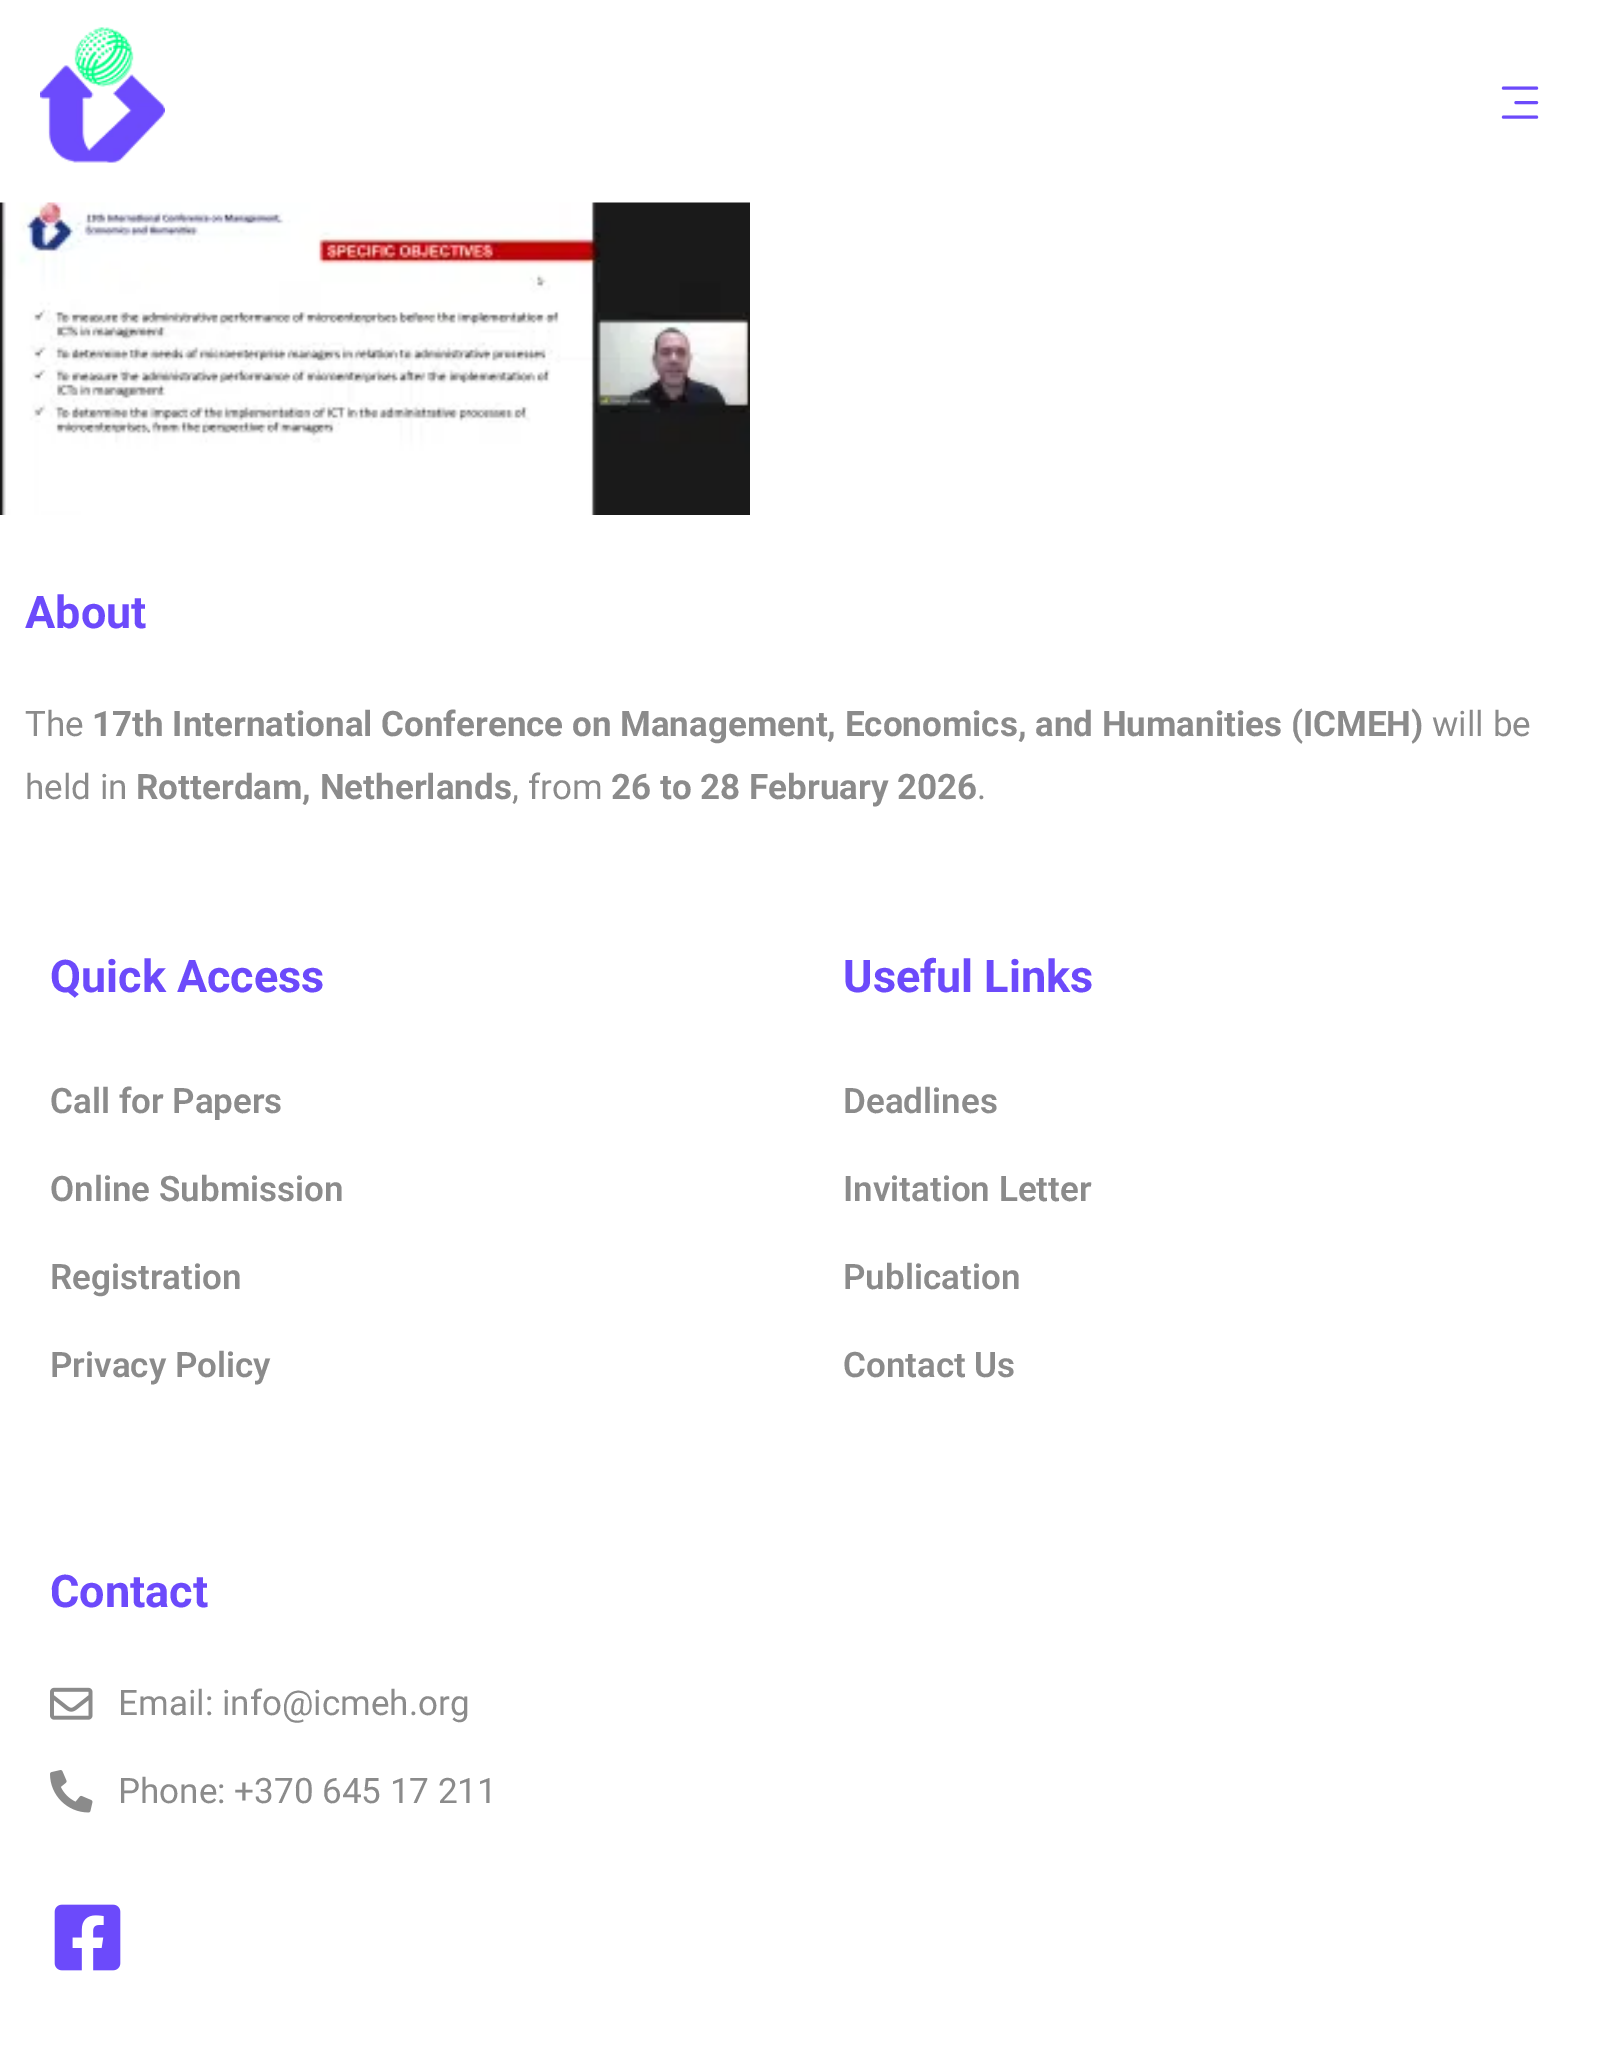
%!PS-Adobe-3.0
%%BoundingBox: 0 0 1615 2053
%%LanguageLevel: 3
%%Pages: 1
%%EndComments
%%BeginProlog
/setink { 3 { 255 div 3 1 roll } repeat setrgbcolor } def
/usefont { [ exch dup neg 0 0 3 -1 roll 0 0 ] selectfont } def
/drawtext { setink usefont moveto show } def
/fillbox { setink rectfill } def
/drawimage { 5 dict begin { /h /w /y /x /name } { exch def } forall
  gsave x y translate w h scale
  w h 8 [w 0 0 h 0 0] name (r) file false 3 colorimage grestore end } def
%%EndProlog
%%BeginSetup
<< /PageSize [1615 2053] >> setpagedevice
%%EndSetup
%%Page: 1 1
0 2053 translate 1 -1 scale
4 setmiterlimit
0 0 1615 2053 255 255 255 fillbox
(assets/img1.rgb) 40 27 125 136 drawimage
108 74 251 setink
3.1 setlinewidth
1 setlinecap
1 setlinejoin
1536.5 102.5 moveto 1516 102.5 lineto 1536.5 88 moveto 1503.5 88 lineto 1536.5 117 moveto 1503.5 117 lineto stroke
(assets/img2.rgb) 0 202 750 313 drawimage
(About) 25 628 /Roboto-Bold 45 108 74 251 drawtext
(The) 25 736 /Roboto-Regular 35 139 139 139 drawtext
(17th International Conference on Management, Economics, and Humanities \(ICMEH\)) 92 736 /Roboto-Bold 35 139 139 139 drawtext
(will be) 1432 736 /Roboto-Regular 35 139 139 139 drawtext
(held in) 25 799 /Roboto-Regular 35 139 139 139 drawtext
(Rotterdam, Netherlands) 136 799 /Roboto-Bold 35 139 139 139 drawtext
(, from) 512 799 /Roboto-Regular 35 139 139 139 drawtext
(26 to 28 February 2026) 611 799 /Roboto-Bold 35 139 139 139 drawtext
(.) 977 799 /Roboto-Regular 35 139 139 139 drawtext
(Quick Access) 50 992 /Roboto-Bold 45 108 74 251 drawtext
(Call for Papers) 50 1113 /Roboto-SemiBold 35 139 139 139 drawtext
(Online Submission) 50 1201 /Roboto-SemiBold 35 139 139 139 drawtext
(Registration) 50 1289 /Roboto-SemiBold 35 139 139 139 drawtext
(Privacy Policy) 50 1377 /Roboto-SemiBold 35 139 139 139 drawtext
(Useful Links) 843 992 /Roboto-Bold 45 108 74 251 drawtext
(Deadlines) 843 1113 /Roboto-SemiBold 35 139 139 139 drawtext
(Invitation Letter) 843 1201 /Roboto-SemiBold 35 139 139 139 drawtext
(Publication) 843 1289 /Roboto-SemiBold 35 139 139 139 drawtext
(Contact Us) 843 1377 /Roboto-SemiBold 35 139 139 139 drawtext
(Contact) 50 1607 /Roboto-Bold 45 108 74 251 drawtext
(assets/img3.rgb) 50 1687 43 33 drawimage
(Email: info@icmeh.org) 118 1715 /Roboto-Regular 35 139 139 139 drawtext
(assets/img4.rgb) 50 1770 43 43 drawimage
(Phone: +370 645 17 211) 118 1803 /Roboto-Regular 35 139 139 139 drawtext
(assets/img5.rgb) 54 1904 67 67 drawimage
showpage
%%EOF
